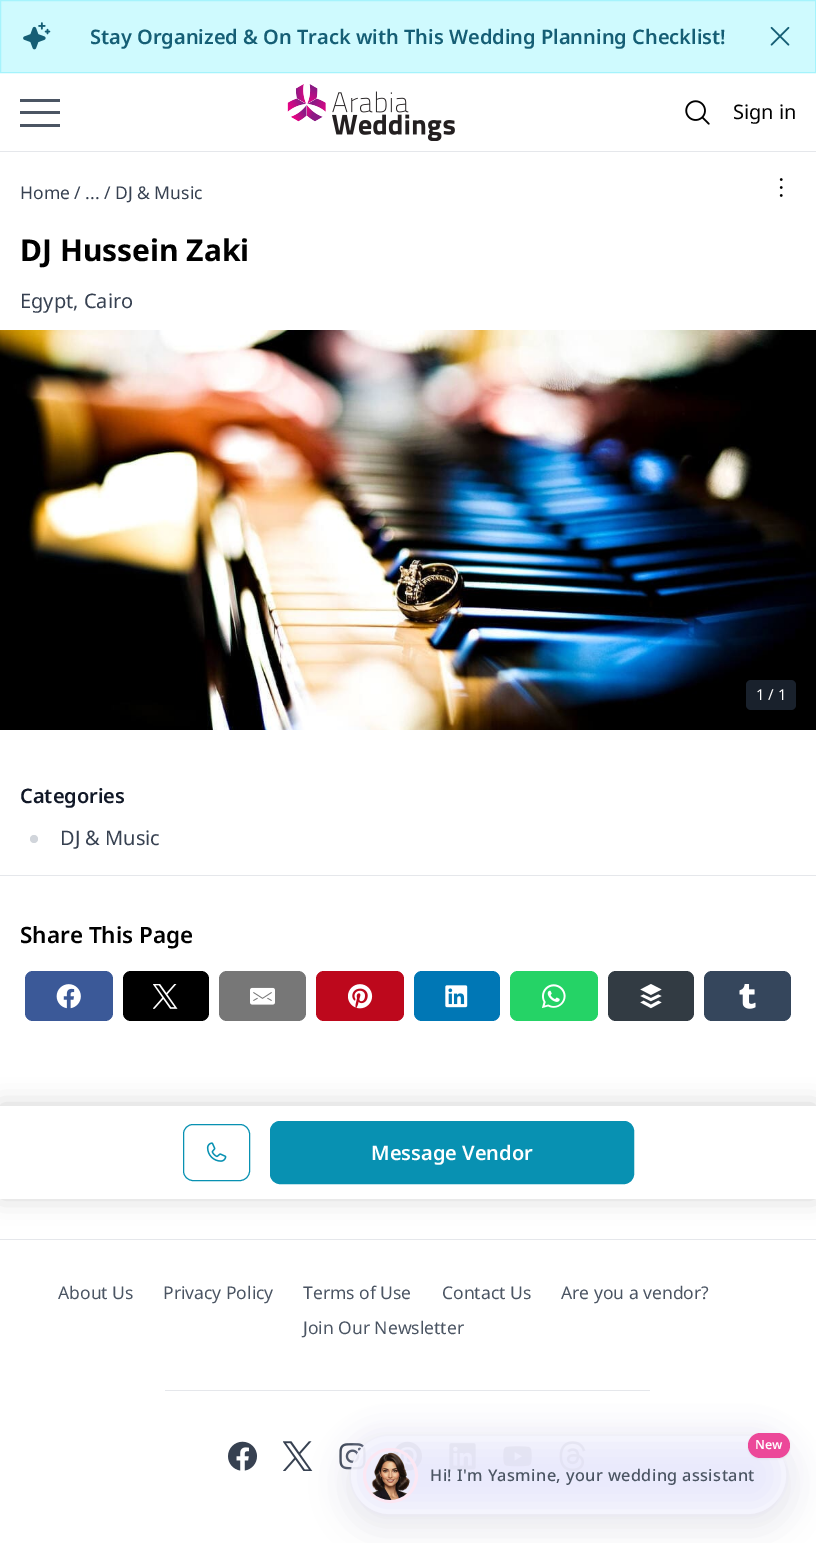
%!PS-Adobe-3.0
%%BoundingBox: 0 0 816 1543
%%LanguageLevel: 3
%%Pages: 1
%%EndComments
%%BeginProlog
/setink { 3 { 255 div 3 1 roll } repeat setrgbcolor } def
/usefont { [ exch dup neg 0 0 3 -1 roll 0 0 ] selectfont } def
/drawtext { setink usefont moveto show } def
/fillbox { setink rectfill } def
/setalpha { dup .setfillconstantalpha .setstrokeconstantalpha } def
/disc { newpath 0 360 arc closepath } def
/rrect { 5 dict begin { /r /h /w /y /x } { exch def } forall
  x r add y moveto x w add y 2 copy h add r arct x w add y h add x 1 index r arct
  x y h add x y r arct x y 2 copy exch w add exch r arct closepath end } def
/softshadow { 12 dict begin { /a /b /q /h /w /y /x } { exch def } forall gsave /was 0 def
  9 -2 -9 { dup b mul 4 div /e exch def 1 sub .425 mul 2.718 exch exp 1 add a .99 .min exch div /now exch def
    1 1 now sub 1 was sub div sub setalpha /was now def
    w h .min e 2 mul add 0 gt { x e sub y e sub w e 2 mul add h e 2 mul add
      q e add b .6 mul add w h .min 2 div e add .min 0 .max rrect fill } if } for grestore end } def
/drawimage { 5 dict begin { /h /w /y /x /name } { exch def } forall
  gsave x y translate w h scale
  w h 8 [w 0 0 h 0 0] name (r) file false 3 colorimage grestore end } def
%%EndProlog
%%BeginSetup
<< /PageSize [816 1543] /PageUsesTransparency true >> setpagedevice
%%EndSetup
%%Page: 1 1
0 .pushpdf14devicefilter
0 1543 translate 1 -1 scale
4 setmiterlimit
0 0 816 1543 255 255 255 fillbox
207 250 254 setink
0.5 0.5 moveto 815.5 0.5 lineto 815.5 72.5 lineto 0.5 72.5 lineto closepath gsave fill grestore
165 243 252 setink
stroke
(assets/img1.rgb) 23 22 28 28 drawimage
(Stay Organized & On Track with This Wedding Planning Checklist!) 90 44 /NotoSans-SemiBold 20 21 94 117 drawtext
(assets/img2.rgb) 770 26 20 20 drawimage
0 151 816 1 229 231 235 fillbox
20 99 40 3 75 85 99 fillbox
20 111 40 3 75 85 99 fillbox
20 124 40 3 75 85 99 fillbox
(assets/img3.rgb) 287 84 168 57 drawimage
(assets/img4.rgb) 685 100 25 25 drawimage
(Sign in) 733 119 /NotoSans-Regular 20 0 0 0 drawtext
(Home / ... / DJ & Music) 20 199 /NotoSans-Regular 17.5 55 65 81 drawtext
(assets/img5.rgb) 779 178 4 19 drawimage
(DJ Hussein Zaki) 20 261 /NotoSans-Bold 30 0 0 0 drawtext
(Egypt, Cairo) 20 308 /NotoSans-Regular 20 55 65 81 drawtext
(assets/img6.rgb) 0 330 816 400 drawimage
25 33 44 setink
746 680 50 30 5 rrect fill
(1 / 1) 756 700 /NotoSans-Regular 15 255 255 255 drawtext
(Categories) 20 803 /NotoSans-SemiBold 20 17 24 39 drawtext
209 213 219 setink
34 839 4 disc fill
(DJ & Music) 60 845 /NotoSans-Regular 20 55 65 81 drawtext
0 875 816 1 229 231 235 fillbox
(Share This Page) 20 943 /NotoSans-SemiBold 22.5 0 0 0 drawtext
59 89 152 setink
25 971 88 50 8 rrect fill
(assets/img7.rgb) 56 984 25 25 drawimage
0 0 0 setink
123 971 86 50 8 rrect fill
(assets/img8.rgb) 153 984 25 25 drawimage
119 119 119 setink
219 971 87 50 8 rrect fill
(assets/img9.rgb) 250 987 25 18 drawimage
189 8 28 setink
316 971 88 50 8 rrect fill
(assets/img10.rgb) 348 984 25 25 drawimage
0 119 181 setink
414 971 86 50 8 rrect fill
(assets/img11.rgb) 445 985 23 23 drawimage
37 211 102 setink
510 971 88 50 8 rrect fill
(assets/img12.rgb) 542 984 24 24 drawimage
50 59 67 setink
608 971 86 50 8 rrect fill
(assets/img13.rgb) 640 984 22 25 drawimage
53 70 92 setink
704 971 87 50 8 rrect fill
(assets/img14.rgb) 739 984 17 25 drawimage
211 211 211 setink
0 1105 816 93 0 12.5 1 softshadow
0 1106 816 93 255 255 255 fillbox
8 145 178 setink
183.5 1124.5 66 56 9.5 rrect stroke
(assets/img15.rgb) 206 1142 21 20 drawimage
270.5 1121.5 363 62 9.5 rrect gsave fill grestore
stroke
(Message Vendor) 371 1160 /NotoSans-SemiBold 20 255 255 255 drawtext
0 1239 816 1 229 231 235 fillbox
(About Us) 58 1299 /NotoSans-Regular 17.5 75 85 99 drawtext
(Privacy Policy) 163 1299 /NotoSans-Regular 17.5 75 85 99 drawtext
(Terms of Use) 303 1299 /NotoSans-Regular 17.5 75 85 99 drawtext
(Contact Us) 442 1299 /NotoSans-Regular 17.5 75 85 99 drawtext
(Are you a vendor?) 561 1299 /NotoSans-Regular 17.5 75 85 99 drawtext
(Join Our Newsletter) 303 1334 /NotoSans-Regular 17.5 75 85 99 drawtext
165 1390 485 1 229 231 235 fillbox
(assets/img16.rgb) 228 1441 29 30 drawimage
(assets/img17.rgb) 283 1441 30 30 drawimage
(assets/img18.rgb) 339 1443 27 27 drawimage
(assets/img19.rgb) 393 1441 29 30 drawimage
(assets/img20.rgb) 449 1443 27 27 drawimage
(assets/img21.rgb) 503 1446 29 21 drawimage
(assets/img22.rgb) 559 1441 27 30 drawimage
gsave
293 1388 moveto 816 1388 lineto 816 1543 lineto 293 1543 lineto closepath 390 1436 moveto 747 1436 lineto 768.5 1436 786 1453.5 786 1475 curveto 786 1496.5 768.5 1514 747 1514 curveto 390 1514 lineto 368.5 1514 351 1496.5 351 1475 curveto 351 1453.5 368.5 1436 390 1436 curveto closepath eoclip newpath
0 0 0 setink
351 1446 435 78 39 19 0.08 softshadow
grestore
0.9 setalpha
255 255 255 setink
351 1436 435 78 39 rrect fill
0.6 setalpha
351.5 1436.5 434 77 38.5 rrect stroke
1 setalpha
221 219 249 setink
353 1438 432 75 37.5 15 0.6 softshadow
0 0 0 setink
748 1434 42 25 12.5 1 0.05 softshadow
236 72 153 setink
748 1433 42 25 12.5 rrect fill
(New) 755 1449 /NotoSans-SemiBold 12.5 255 255 255 drawtext
252 231 243 setink
3 setlinewidth
390.5 1475.5 26 disc stroke
(assets/img23.rgb) 371 1452 39 48 drawimage
/NotoSans-Medium 16.25 usefont
75 85 99 setink
430 1481 moveto 0.4 0 (Hi! I'm Yasmine, your wedding assistant) ashow
.poppdf14devicefilter showpage
%%EOF
